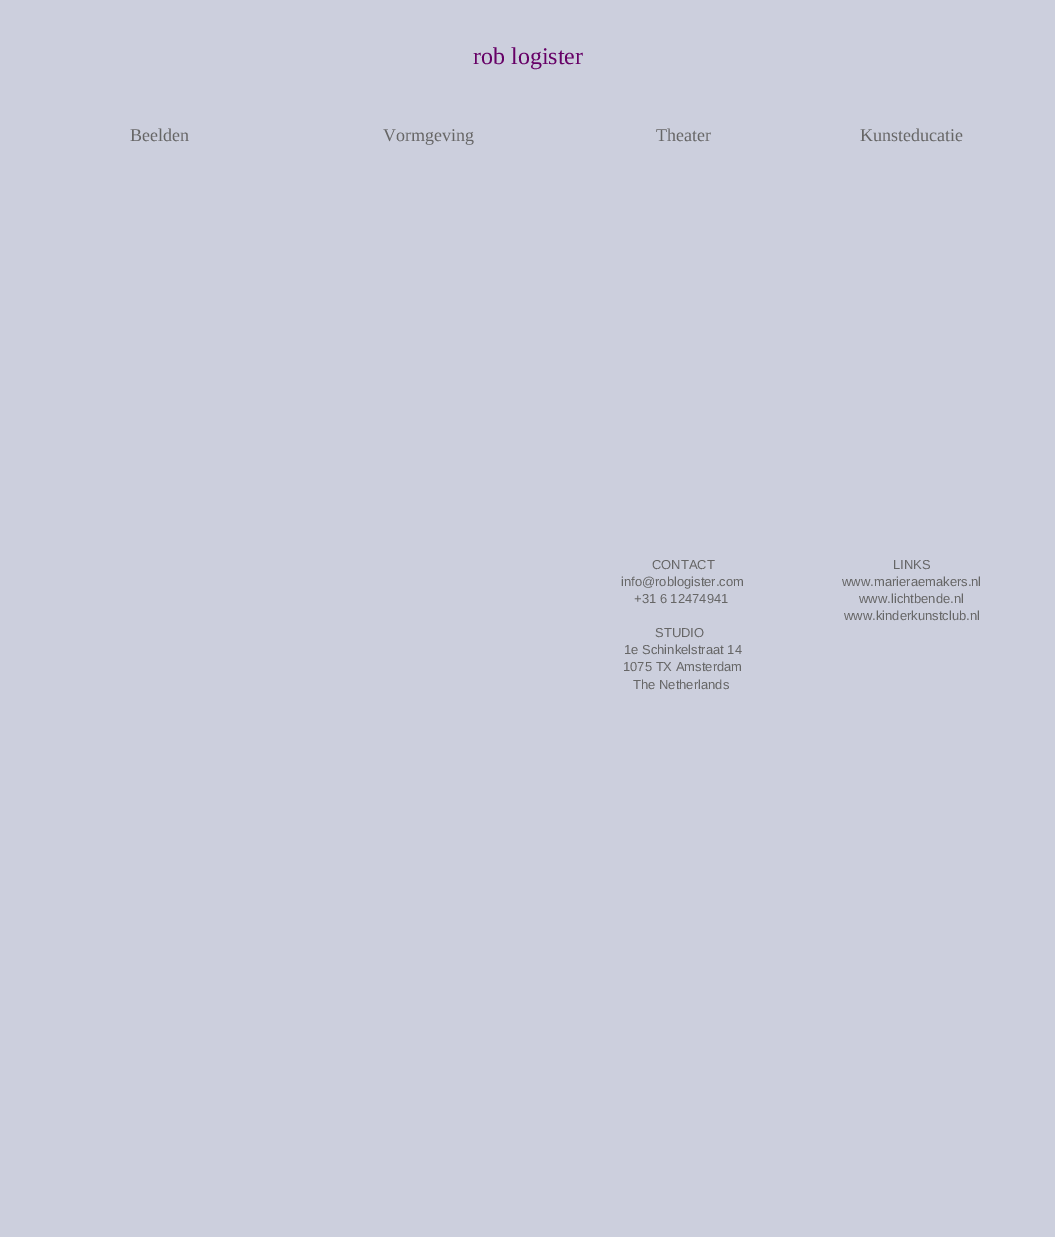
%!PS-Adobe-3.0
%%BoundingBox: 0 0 1055 1237
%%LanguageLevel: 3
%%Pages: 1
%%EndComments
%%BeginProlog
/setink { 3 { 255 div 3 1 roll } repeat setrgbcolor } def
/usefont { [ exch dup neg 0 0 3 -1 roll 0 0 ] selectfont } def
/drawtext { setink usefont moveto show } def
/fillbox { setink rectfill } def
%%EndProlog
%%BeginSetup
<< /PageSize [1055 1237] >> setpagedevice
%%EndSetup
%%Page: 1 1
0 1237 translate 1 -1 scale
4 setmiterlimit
0 0 1055 1237 204 207 221 fillbox
(rob logister) 473 64 /LiberationSerif-Regular 24 102 0 102 drawtext
(Beelden) 130 141 /LiberationSerif-Regular 18 102 102 102 drawtext
(Vormgeving) 383 141 /LiberationSerif-Regular 18 102 102 102 drawtext
(Theater) 656 141 /LiberationSerif-Regular 18 102 102 102 drawtext
(Kunsteducatie) 860 141 /LiberationSerif-Regular 18 102 102 102 drawtext
(CONTACT) 652 569 /LiberationSans-Regular 13 102 102 102 drawtext
(info@roblogister.com) 621 586 /LiberationSans-Regular 13 102 102 102 drawtext
(+31 6 12474941) 634 603 /LiberationSans-Regular 13 102 102 102 drawtext
(STUDIO) 655 637 /LiberationSans-Regular 13 102 102 102 drawtext
(1e Schinkelstraat 14) 624 654 /LiberationSans-Regular 13 102 102 102 drawtext
(1075 TX Amsterdam) 623 671 /LiberationSans-Regular 13 102 102 102 drawtext
(The Netherlands) 633 689 /LiberationSans-Regular 13 102 102 102 drawtext
(LINKS) 893 569 /LiberationSans-Regular 13 102 102 102 drawtext
(www.marieraemakers.nl) 842 586 /LiberationSans-Regular 13 102 102 102 drawtext
(www.lichtbende.nl) 859 603 /LiberationSans-Regular 13 102 102 102 drawtext
(www.kinderkunstclub.nl) 844 620 /LiberationSans-Regular 13 102 102 102 drawtext
showpage
%%EOF
